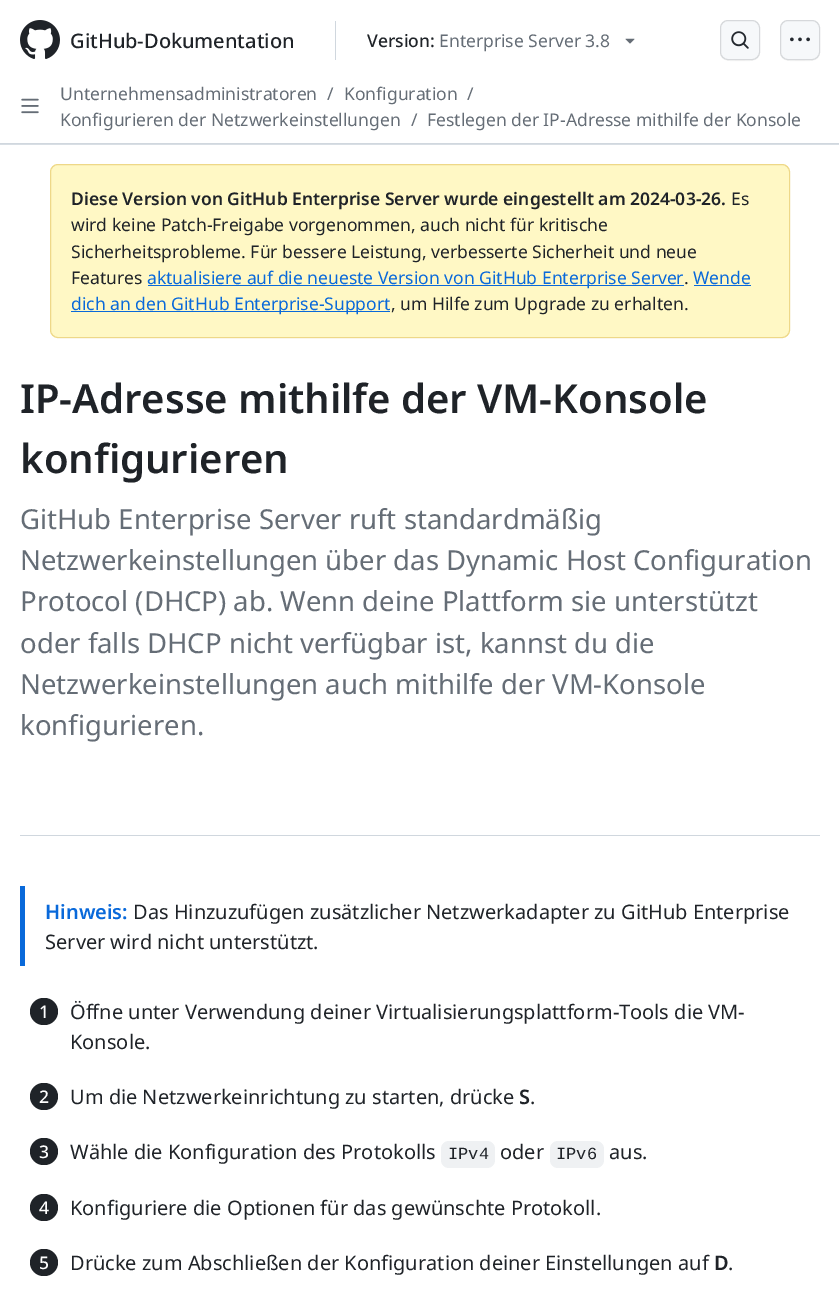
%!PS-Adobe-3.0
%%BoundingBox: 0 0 839 1301
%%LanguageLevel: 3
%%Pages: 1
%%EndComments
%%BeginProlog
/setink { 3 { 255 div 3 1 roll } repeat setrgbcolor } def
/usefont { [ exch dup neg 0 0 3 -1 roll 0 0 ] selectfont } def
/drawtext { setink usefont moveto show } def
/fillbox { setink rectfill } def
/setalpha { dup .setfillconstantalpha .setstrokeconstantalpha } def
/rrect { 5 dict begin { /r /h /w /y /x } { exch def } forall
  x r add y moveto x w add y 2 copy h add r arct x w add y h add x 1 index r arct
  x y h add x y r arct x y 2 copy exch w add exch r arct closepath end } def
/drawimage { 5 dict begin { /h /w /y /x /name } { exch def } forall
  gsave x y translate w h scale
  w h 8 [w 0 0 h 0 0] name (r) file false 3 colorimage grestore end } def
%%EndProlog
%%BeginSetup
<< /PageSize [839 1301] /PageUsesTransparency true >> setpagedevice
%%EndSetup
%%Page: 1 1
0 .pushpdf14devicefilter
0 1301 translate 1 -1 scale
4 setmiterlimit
0 0 839 1301 255 255 255 fillbox
0 144 839 1 216 222 228 fillbox
0 143 839 1 208 215 222 fillbox
(assets/img1.rgb) 20 20 40 39 drawimage
(GitHub-Dokumentation) 70 48 /NotoSans-Medium 20 31 35 40 drawtext
335 21 1 39 208 215 222 fillbox
(Version:) 367 47 /NotoSans-Medium 17.5 31 35 40 drawtext
(Enterprise Server 3.8) 439 47 /NotoSans-Regular 17.5 101 109 118 drawtext
(assets/img2.rgb) 625 38 10 6 drawimage
246 246 246 setink
720 52 moveto 720 63 733 61 740 61 curveto 747 61 760 63 760 52 curveto 760 63 746 60 740 60 curveto 734 60 720 63 720 52 curveto closepath fill
246 248 250 setink
720 20 40 40 8 rrect fill
0.15 setalpha
31 35 40 setink
720.5 20.5 39 39 7.5 rrect stroke
1 setalpha
(assets/img3.rgb) 731 31 18 18 drawimage
246 246 246 setink
780 52 moveto 780 63 793 61 800 61 curveto 807 61 820 63 820 52 curveto 820 63 806 60 800 60 curveto 794 60 780 63 780 52 curveto closepath fill
246 248 250 setink
780 20 40 40 8 rrect fill
0.15 setalpha
31 35 40 setink
780.5 20.5 39 39 7.5 rrect stroke
1 setalpha
(assets/img4.rgb) 790 37 20 5 drawimage
(assets/img5.rgb) 21 98 18 16 drawimage
(Unternehmensadministratoren) 60 100 /NotoSans-Regular 17.5 101 109 118 drawtext
(/) 327 100 /NotoSans-Regular 17.5 101 109 118 drawtext
(Konfiguration) 344 100 /NotoSans-Regular 17.5 101 109 118 drawtext
(/) 467 100 /NotoSans-Regular 17.5 101 109 118 drawtext
(Konfigurieren der Netzwerkeinstellungen) 60 126 /NotoSans-Regular 17.5 101 109 118 drawtext
(/) 411 126 /NotoSans-Regular 17.5 101 109 118 drawtext
(Festlegen der IP-Adresse mithilfe der Konsole) 427 126 /NotoSans-Regular 17.5 101 109 118 drawtext
255 248 197 setink
50 164 740 174 8 rrect fill
0.4 setalpha
212 167 44 setink
50.5 164.5 739 173 7.5 rrect stroke
1 setalpha
(Diese Version von GitHub Enterprise Server wurde eingestellt am 2024-03-26.) 71 205 /NotoSans-SemiBold 17.5 31 35 40 drawtext
(Es) 731 205 /NotoSans-Regular 17.5 31 35 40 drawtext
(wird keine Patch-Freigabe vorgenommen, auch nicht für kritische) 71 231 /NotoSans-Regular 17.5 31 35 40 drawtext
(Sicherheitsprobleme. Für bessere Leistung, verbesserte Sicherheit und neue) 71 258 /NotoSans-Regular 17.5 31 35 40 drawtext
(Features) 71 284 /NotoSans-Regular 17.5 31 35 40 drawtext
148 285 536 1 9 105 218 fillbox
(aktualisiere auf die neueste Version von GitHub Enterprise Server) 147 284 /NotoSans-Regular 17.5 9 105 218 drawtext
(.) 684 284 /NotoSans-Regular 17.5 31 35 40 drawtext
694 285 57 1 9 105 218 fillbox
(Wende) 693 284 /NotoSans-Regular 17.5 9 105 218 drawtext
71 311 319 1 9 105 218 fillbox
(dich an den GitHub Enterprise-Support) 71 310 /NotoSans-Regular 17.5 9 105 218 drawtext
(, um Hilfe zum Upgrade zu erhalten.) 391 310 /NotoSans-Regular 17.5 31 35 40 drawtext
(IP-Adresse mithilfe der VM-Konsole) 20 413 /NotoSans-SemiBold 40 31 35 40 drawtext
(konfigurieren) 20 473 /NotoSans-SemiBold 40 31 35 40 drawtext
(GitHub Enterprise Server ruft standardmäßig) 20 529 /NotoSans-Regular 27.5 101 109 118 drawtext
(Netzwerkeinstellungen über das Dynamic Host Configuration) 20 570 /NotoSans-Regular 27.5 101 109 118 drawtext
(Protocol \(DHCP\) ab. Wenn deine Plattform sie unterstützt) 20 611 /NotoSans-Regular 27.5 101 109 118 drawtext
(oder falls DHCP nicht verfügbar ist, kannst du die) 20 653 /NotoSans-Regular 27.5 101 109 118 drawtext
(Netzwerkeinstellungen auch mithilfe der VM-Konsole) 20 694 /NotoSans-Regular 27.5 101 109 118 drawtext
(konfigurieren.) 20 735 /NotoSans-Regular 27.5 101 109 118 drawtext
20 835 800 1 208 215 222 fillbox
20 886 5 80 9 105 218 fillbox
(Hinweis:) 45 919 /NotoSans-SemiBold 20 9 105 218 drawtext
(Das Hinzuzufügen zusätzlicher Netzwerkadapter zu GitHub Enterprise) 133 919 /NotoSans-Regular 20 31 35 40 drawtext
(Server wird nicht unterstützt.) 45 949 /NotoSans-Regular 20 31 35 40 drawtext
30 998 28 27 13.5 rrect fill
(1) 39 1018 /NotoSans-Medium 17.5 255 255 255 drawtext
(Öffne unter Verwendung deiner Virtualisierungsplattform-Tools die VM-) 70 1019 /NotoSans-Regular 20 31 35 40 drawtext
(Konsole.) 70 1049 /NotoSans-Regular 20 31 35 40 drawtext
30 1083 28 27 13.5 rrect fill
(2) 39 1103 /NotoSans-Medium 17.5 255 255 255 drawtext
(Um die Netzwerkeinrichtung zu starten, drücke) 70 1104 /NotoSans-Regular 20 31 35 40 drawtext
(S) 519 1104 /NotoSans-SemiBold 20 31 35 40 drawtext
(.) 530 1104 /NotoSans-Regular 20 31 35 40 drawtext
30 1138 28 27 13.5 rrect fill
(3) 39 1158 /NotoSans-Medium 17.5 255 255 255 drawtext
(Wähle die Konfiguration des Protokolls) 70 1159 /NotoSans-Regular 20 31 35 40 drawtext
239 241 243 setink
441 1141 54 27 8 rrect fill
(IPv4) 448 1159 /LiberationMono-Regular 17 31 35 40 drawtext
(oder) 500 1159 /NotoSans-Regular 20 31 35 40 drawtext
239 241 243 setink
550 1141 54 27 8 rrect fill
(IPv6) 556 1159 /LiberationMono-Regular 17 31 35 40 drawtext
(aus.) 609 1159 /NotoSans-Regular 20 31 35 40 drawtext
30 1194 28 27 13.5 rrect fill
(4) 39 1214 /NotoSans-Medium 17.5 255 255 255 drawtext
(Konfiguriere die Optionen für das gewünschte Protokoll.) 70 1215 /NotoSans-Regular 20 31 35 40 drawtext
30 1249 28 27 13.5 rrect fill
(5) 39 1269 /NotoSans-Medium 17.5 255 255 255 drawtext
(Drücke zum Abschließen der Konfiguration deiner Einstellungen auf) 70 1270 /NotoSans-Regular 20 31 35 40 drawtext
(D) 714 1270 /NotoSans-SemiBold 20 31 35 40 drawtext
(.) 728 1270 /NotoSans-Regular 20 31 35 40 drawtext
.poppdf14devicefilter showpage
%%EOF
